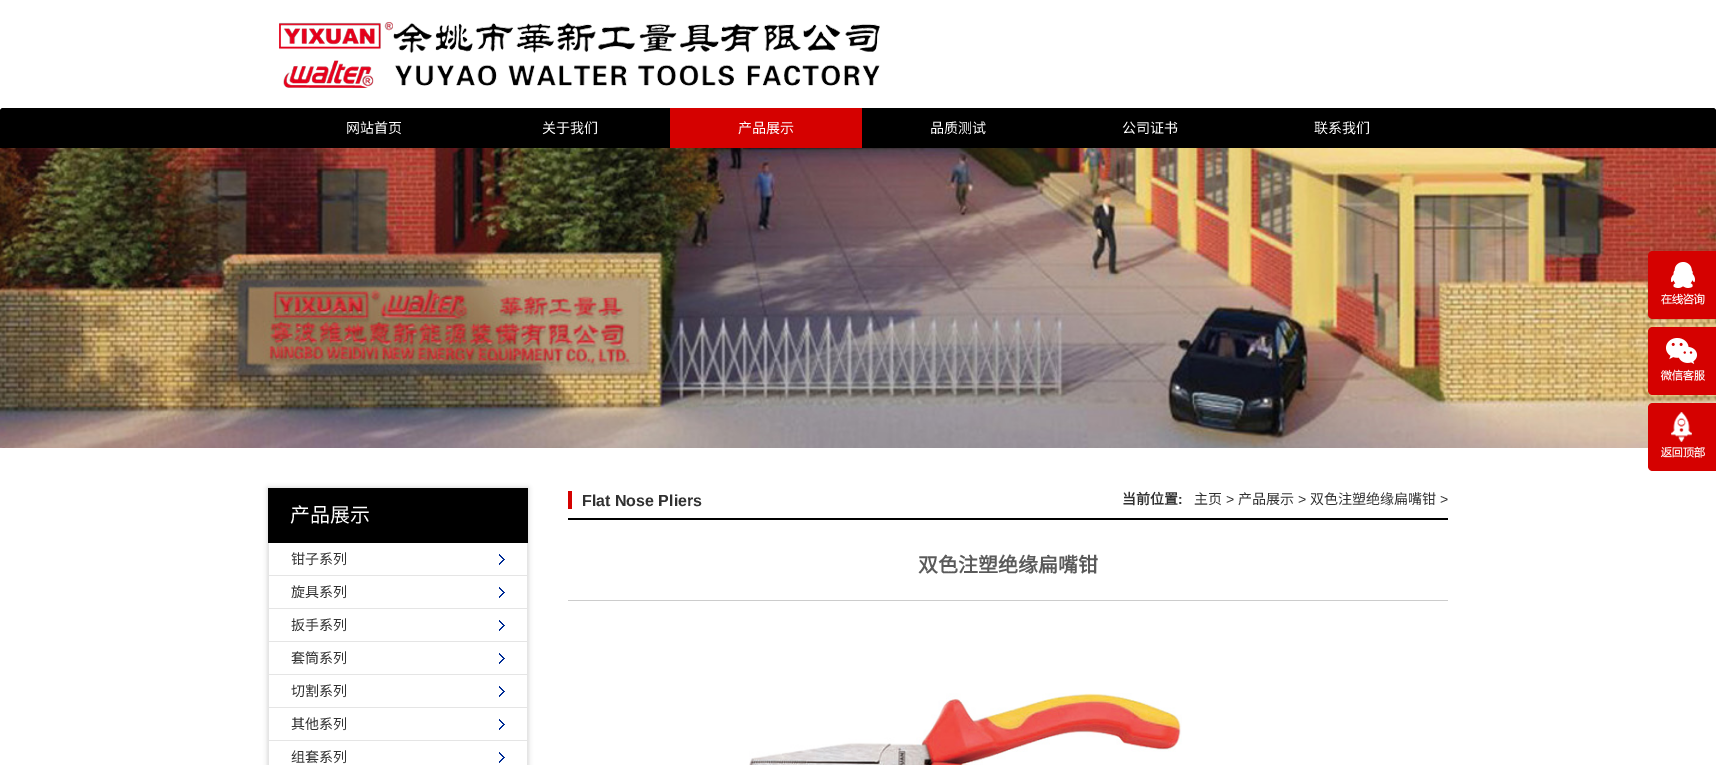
%!PS-Adobe-3.0
%%BoundingBox: 0 0 1716 765
%%LanguageLevel: 3
%%Pages: 1
%%EndComments
%%BeginProlog
/setink { 3 { 255 div 3 1 roll } repeat setrgbcolor } def
/usefont { [ exch dup neg 0 0 3 -1 roll 0 0 ] selectfont } def
/drawtext { setink usefont moveto show } def
/fillbox { setink rectfill } def
/setalpha { dup .setfillconstantalpha .setstrokeconstantalpha } def
/rrect { 5 dict begin { /r /h /w /y /x } { exch def } forall
  x r add y moveto x w add y 2 copy h add r arct x w add y h add x 1 index r arct
  x y h add x y r arct x y 2 copy exch w add exch r arct closepath end } def
/softshadow { 12 dict begin { /a /b /q /h /w /y /x } { exch def } forall gsave /was 0 def
  9 -2 -9 { dup b mul 4 div /e exch def 1 sub .425 mul 2.718 exch exp 1 add a .99 .min exch div /now exch def
    1 1 now sub 1 was sub div sub setalpha /was now def
    w h .min e 2 mul add 0 gt { x e sub y e sub w e 2 mul add h e 2 mul add
      q e add b .6 mul add w h .min 2 div e add .min 0 .max rrect fill } if } for grestore end } def
/drawimage { 5 dict begin { /h /w /y /x /name } { exch def } forall
  gsave x y translate w h scale
  w h 8 [w 0 0 h 0 0] name (r) file false 3 colorimage grestore end } def
%%EndProlog
%%BeginSetup
<< /PageSize [1716 765] /PageUsesTransparency true >> setpagedevice
%%EndSetup
%%Page: 1 1
0 .pushpdf14devicefilter
0 765 translate 1 -1 scale
4 setmiterlimit
0 0 1716 765 255 255 255 fillbox
(assets/img1.rgb) 279 22 601 66 drawimage
0 0 0 setink
3 108 moveto 1713 108 lineto 1714.5 108 1716 109.5 1716 111 curveto 1716 148 lineto 0 148 lineto 0 111 lineto 0 109.5 1.5 108 3 108 curveto closepath fill
(网站首页) 346 133 /NotoSansCJKSC-Regular 14 255 255 255 drawtext
(关于我们) 542 133 /NotoSansCJKSC-Regular 14 255 255 255 drawtext
670 108 192 40 213 1 0 fillbox
(产品展示) 738 133 /NotoSansCJKSC-Regular 14 255 255 255 drawtext
(品质测试) 930 133 /NotoSansCJKSC-Regular 14 255 255 255 drawtext
(公司证书) 1122 133 /NotoSansCJKSC-Regular 14 255 255 255 drawtext
(联系我们) 1314 133 /NotoSansCJKSC-Regular 14 255 255 255 drawtext
(assets/img2.rgb) 0 148 1716 300 drawimage
213 1 0 setink
1653 251 moveto 1716 251 lineto 1716 319 lineto 1653 319 lineto 1650 319 1648 317 1648 314 curveto 1648 256 lineto 1648 253 1650 251 1653 251 curveto closepath fill
(assets/img3.rgb) 1661 262 44 43 drawimage
1653 327 moveto 1716 327 lineto 1716 395 lineto 1653 395 lineto 1650 395 1648 393 1648 390 curveto 1648 332 lineto 1648 329 1650 327 1653 327 curveto closepath fill
(assets/img4.rgb) 1660 338 45 43 drawimage
1653 403 moveto 1716 403 lineto 1716 471 lineto 1653 471 lineto 1650 471 1648 469 1648 466 curveto 1648 408 lineto 1648 405 1650 403 1653 403 curveto closepath fill
(assets/img5.rgb) 1661 412 44 46 drawimage
gsave
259 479 moveto 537 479 lineto 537 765 lineto 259 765 lineto closepath 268 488 moveto 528 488 lineto 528 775 lineto 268 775 lineto closepath eoclip newpath
204 204 204 setink
268 488 260 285 0 2.5 1 softshadow
grestore
268 488 260 55 0 0 0 fillbox
(产品展示) 290 522 /NotoSansCJKSC-Regular 20 255 255 255 drawtext
527 543 1 222 229 229 229 fillbox
268 543 1 222 229 229 229 fillbox
269 575 258 1 229 229 229 fillbox
(assets/img6.rgb) 499 554 6 11 drawimage
(钳子系列) 291 564 /NotoSansCJKSC-Regular 14 49 49 49 drawtext
269 608 258 1 229 229 229 fillbox
(assets/img6.rgb) 499 587 6 11 drawimage
(旋具系列) 291 597 /NotoSansCJKSC-Regular 14 49 49 49 drawtext
269 641 258 1 229 229 229 fillbox
(assets/img6.rgb) 499 620 6 11 drawimage
(扳手系列) 291 630 /NotoSansCJKSC-Regular 14 49 49 49 drawtext
269 674 258 1 229 229 229 fillbox
(assets/img6.rgb) 499 653 6 11 drawimage
(套筒系列) 291 663 /NotoSansCJKSC-Regular 14 49 49 49 drawtext
269 707 258 1 229 229 229 fillbox
(assets/img6.rgb) 499 686 6 11 drawimage
(切割系列) 291 696 /NotoSansCJKSC-Regular 14 49 49 49 drawtext
269 740 258 1 229 229 229 fillbox
(assets/img6.rgb) 499 719 6 11 drawimage
(其他系列) 291 729 /NotoSansCJKSC-Regular 14 49 49 49 drawtext
(assets/img6.rgb) 499 752 6 11 drawimage
(组套系列) 291 762 /NotoSansCJKSC-Regular 14 49 49 49 drawtext
568 518 880 2 0 0 0 fillbox
568 491 4 18 213 1 0 fillbox
(Flat Nose Pliers) 582 506 /LiberationSans-Bold 16 49 49 49 drawtext
(当前位置) 1122 504 /NotoSansCJKSC-Bold 14 49 49 49 drawtext
(:) 1178 504 /LiberationSans-Bold 14 49 49 49 drawtext
(主页) 1194 504 /NotoSansCJKSC-Regular 14 49 49 49 drawtext
(>) 1226 504 /LiberationSans-Regular 14 49 49 49 drawtext
(产品展示) 1238 504 /NotoSansCJKSC-Regular 14 49 49 49 drawtext
(>) 1298 504 /LiberationSans-Regular 14 49 49 49 drawtext
(双色注塑绝缘扁嘴钳) 1310 504 /NotoSansCJKSC-Regular 14 49 49 49 drawtext
(>) 1440 504 /LiberationSans-Regular 14 49 49 49 drawtext
(双色注塑绝缘扁嘴钳) 918 572 /NotoSansCJKSC-Bold 20 90 90 90 drawtext
568 600 880 1 204 204 204 fillbox
(assets/img7.rgb) 749 693 433 72 drawimage
.poppdf14devicefilter showpage
%%EOF
